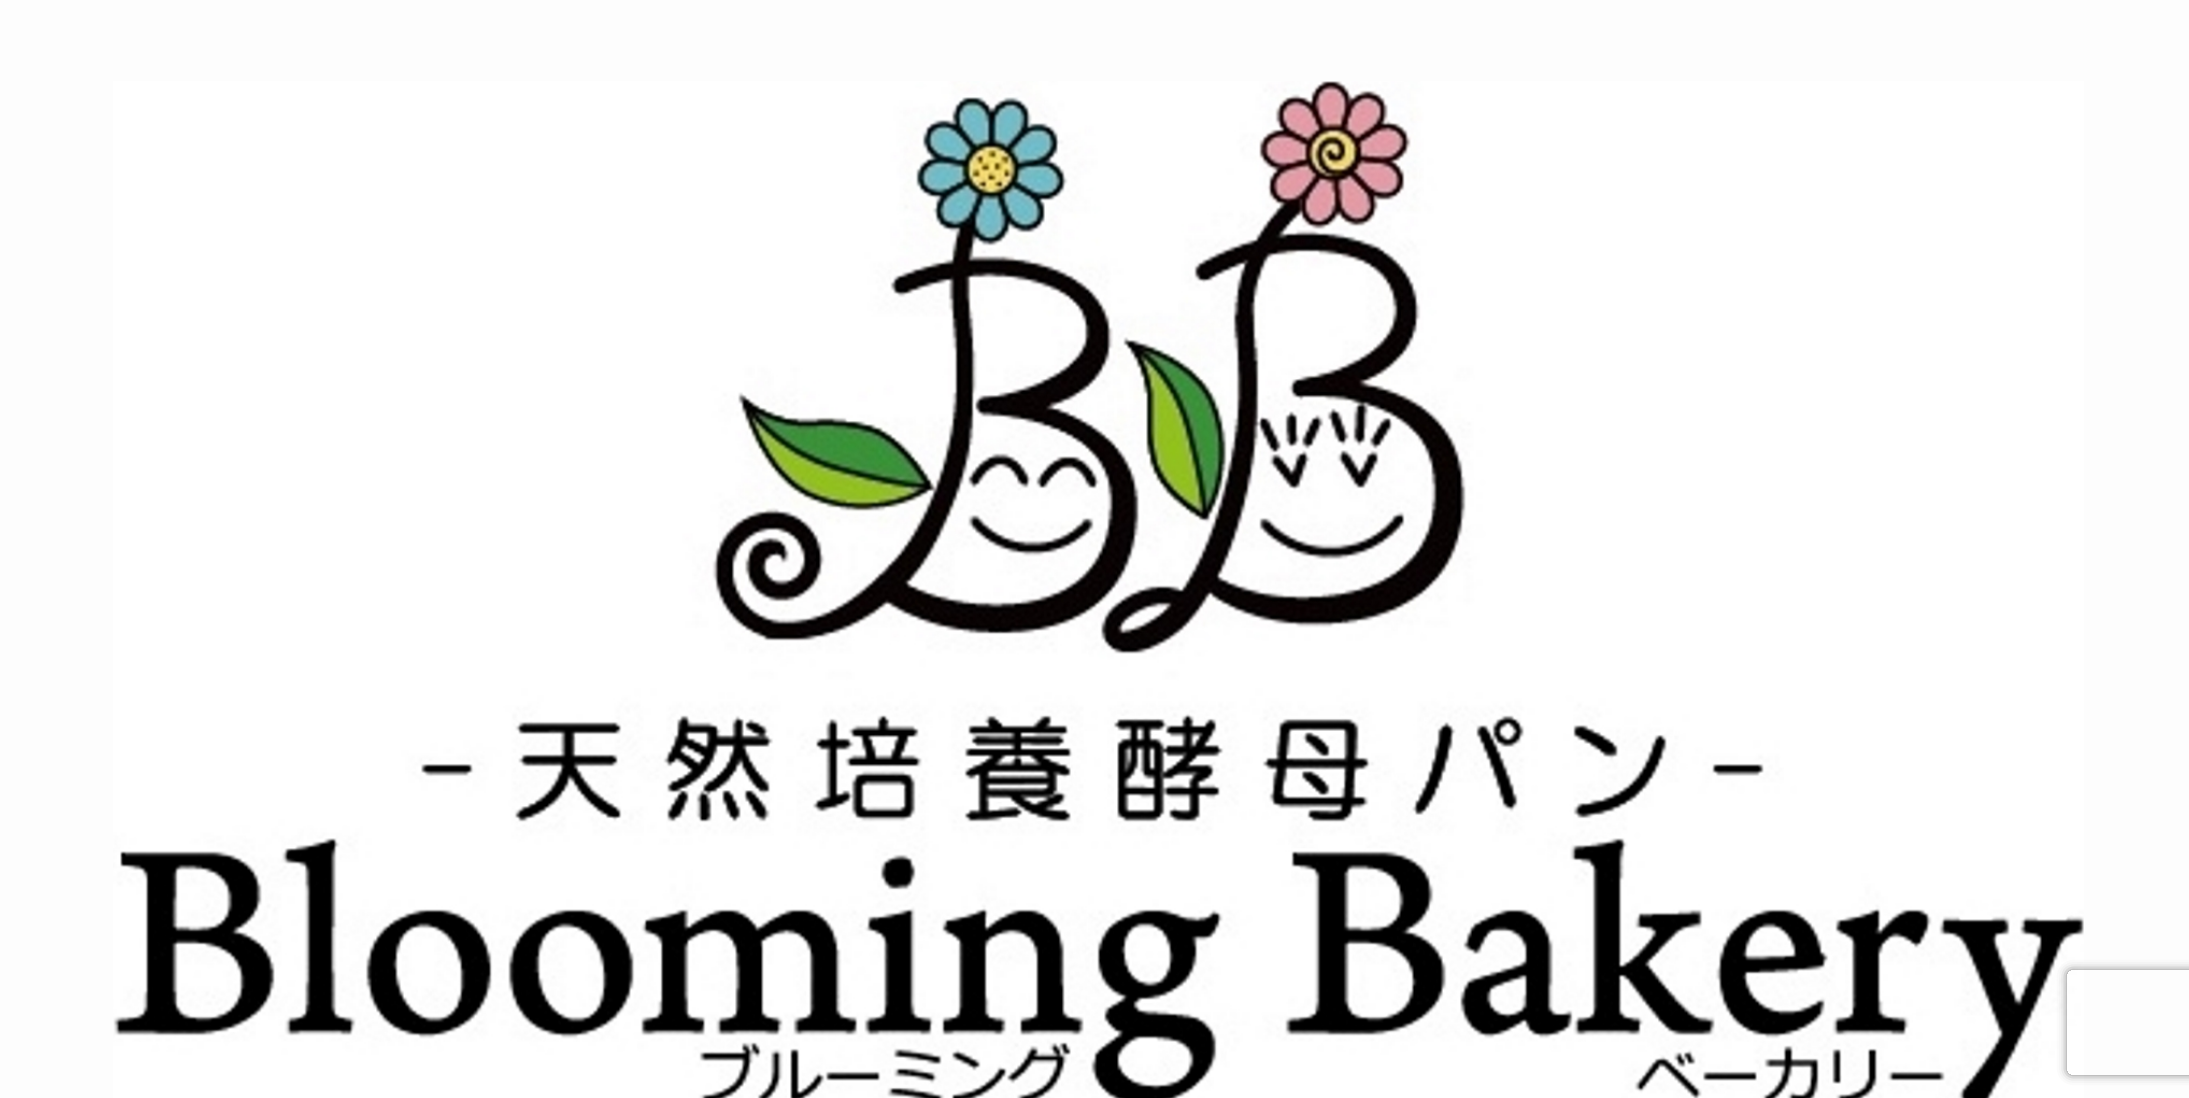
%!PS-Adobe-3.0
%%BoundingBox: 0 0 2189 1098
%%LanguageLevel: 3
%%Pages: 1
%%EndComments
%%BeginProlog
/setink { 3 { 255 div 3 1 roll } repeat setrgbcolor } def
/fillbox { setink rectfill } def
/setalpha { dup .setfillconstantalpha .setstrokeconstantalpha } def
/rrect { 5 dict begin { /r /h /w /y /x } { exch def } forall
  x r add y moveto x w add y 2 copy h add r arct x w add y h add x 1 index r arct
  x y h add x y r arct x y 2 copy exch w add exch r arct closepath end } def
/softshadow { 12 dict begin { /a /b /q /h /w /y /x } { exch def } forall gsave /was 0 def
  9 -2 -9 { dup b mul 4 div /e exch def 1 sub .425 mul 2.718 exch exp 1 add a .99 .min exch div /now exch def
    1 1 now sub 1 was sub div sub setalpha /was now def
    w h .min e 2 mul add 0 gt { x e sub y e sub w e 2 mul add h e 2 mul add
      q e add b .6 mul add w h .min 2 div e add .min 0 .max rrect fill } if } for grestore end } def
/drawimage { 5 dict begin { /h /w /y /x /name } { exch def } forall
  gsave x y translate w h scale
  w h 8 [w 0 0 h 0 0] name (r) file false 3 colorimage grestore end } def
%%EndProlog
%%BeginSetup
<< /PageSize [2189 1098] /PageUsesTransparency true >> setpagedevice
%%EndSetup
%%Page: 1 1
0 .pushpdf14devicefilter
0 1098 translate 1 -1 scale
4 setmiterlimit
0 0 2189 1098 253 253 253 fillbox
(assets/img1.rgb) 113 81 1971 1017 drawimage
gsave
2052 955 moveto 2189 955 lineto 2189 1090 lineto 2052 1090 lineto closepath 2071 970 moveto 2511 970 lineto 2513 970 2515 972 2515 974 curveto 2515 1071 lineto 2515 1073 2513 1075 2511 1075 curveto 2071 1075 lineto 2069 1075 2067 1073 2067 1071 curveto 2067 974 lineto 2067 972 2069 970 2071 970 curveto closepath eoclip newpath
128 128 128 setink
2067 970 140 105 4 4.5 1 softshadow
grestore
.poppdf14devicefilter showpage
%%EOF
